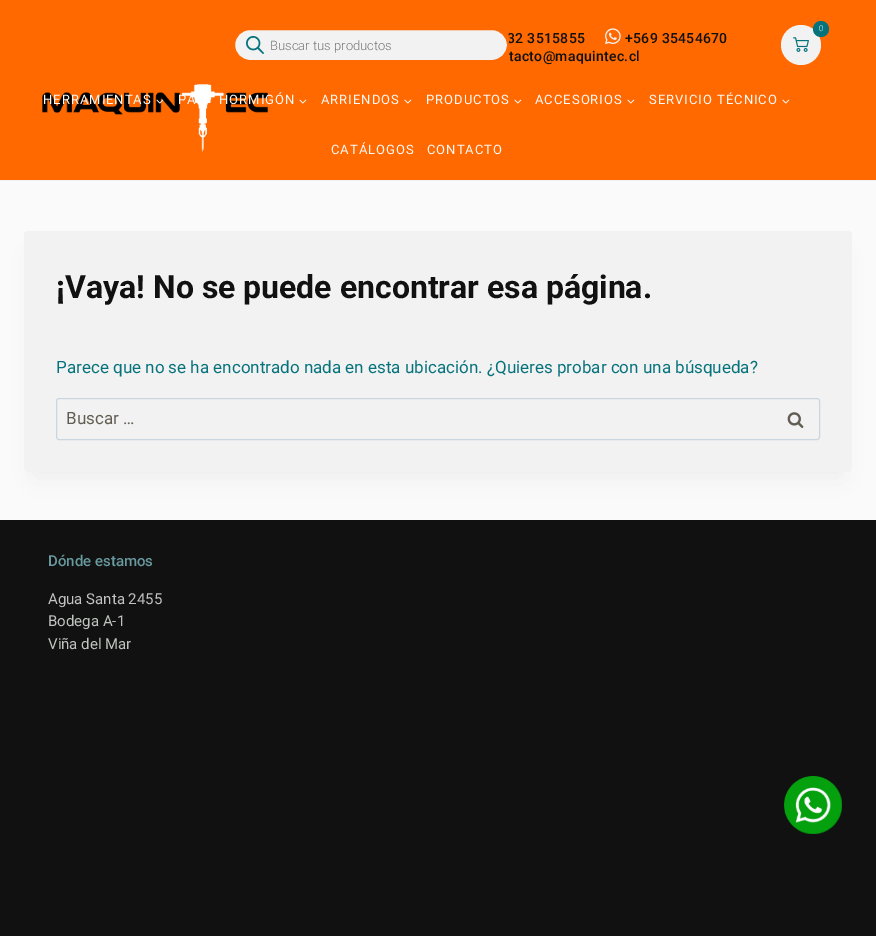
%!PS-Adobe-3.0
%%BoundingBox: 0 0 876 936
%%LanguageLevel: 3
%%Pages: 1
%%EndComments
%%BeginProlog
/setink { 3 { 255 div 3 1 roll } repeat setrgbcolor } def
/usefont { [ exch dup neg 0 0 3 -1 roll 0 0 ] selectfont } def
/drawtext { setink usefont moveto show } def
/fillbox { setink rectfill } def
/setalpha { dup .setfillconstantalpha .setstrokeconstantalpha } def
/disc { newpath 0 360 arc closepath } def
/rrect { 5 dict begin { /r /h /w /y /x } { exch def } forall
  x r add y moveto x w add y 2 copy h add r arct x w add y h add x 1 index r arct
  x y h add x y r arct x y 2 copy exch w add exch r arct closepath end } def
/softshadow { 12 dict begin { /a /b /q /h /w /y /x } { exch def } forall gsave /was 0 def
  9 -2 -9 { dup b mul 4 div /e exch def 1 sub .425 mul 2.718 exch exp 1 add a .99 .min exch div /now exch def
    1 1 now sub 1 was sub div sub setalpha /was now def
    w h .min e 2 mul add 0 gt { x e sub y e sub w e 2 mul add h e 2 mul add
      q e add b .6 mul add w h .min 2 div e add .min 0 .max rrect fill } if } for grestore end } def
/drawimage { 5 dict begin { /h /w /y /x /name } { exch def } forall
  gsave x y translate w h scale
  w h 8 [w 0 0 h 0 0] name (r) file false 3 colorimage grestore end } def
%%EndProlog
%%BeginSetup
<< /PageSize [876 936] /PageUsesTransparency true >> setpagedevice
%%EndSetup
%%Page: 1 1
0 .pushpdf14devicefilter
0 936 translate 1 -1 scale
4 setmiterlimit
0 0 876 936 250 250 250 fillbox
0 0 876 180 255 105 0 fillbox
242 242 242 setink
801 45 20 disc fill
6 114 123 setink
821 29 8 disc fill
(0) 819 31 /Roboto-Light 8 242 242 242 drawtext
(assets/img1.rgb) 793 37 16 15 drawimage
/Roboto-Medium 14 usefont
17 17 17 setink
507 43 moveto 0.3 0 (32 3515855) ashow
255 105 0 setink
233 28 276 34 10 rrect fill
242 242 242 setink
234 29 274 32 16 rrect gsave fill grestore
255 105 0 setink
2 setlinewidth
stroke
(assets/img2.rgb) 246 36 18 18 drawimage
(Buscar tus productos) 270 50 /Roboto-Light 13 119 119 119 drawtext
(assets/img3.rgb) 605 28 16 17 drawimage
/Roboto-Medium 14 usefont
17 17 17 setink
625 43 moveto 0.3 0 (+569 35454670) ashow
509 61 moveto 0.3 0 (tacto@maquintec.cl) ashow
(assets/img6.rgb) 42 84 226 68 drawimage
/Roboto-Regular 13 usefont
250 250 250 setink
43 104 moveto 1 0 (HERRAMIENTAS) ashow
(assets/img4.rgb) 156 99 8 5 drawimage
178 104 moveto 1 0 (PA) ashow
219 104 moveto 1 0 (HORMIGÓN) ashow
(assets/img5.rgb) 299 99 8 5 drawimage
321 104 moveto 1 0 (ARRIENDOS) ashow
(assets/img5.rgb) 404 99 8 5 drawimage
426 104 moveto 1 0 (PRODUCTOS) ashow
(assets/img5.rgb) 514 99 8 5 drawimage
535 104 moveto 1 0 (ACCESORIOS) ashow
(assets/img5.rgb) 627 99 8 5 drawimage
649 104 moveto 1 0 (SERVICIO TÉCNICO) ashow
(assets/img5.rgb) 782 99 8 5 drawimage
331 154 moveto 1 0 (CATÁLOGOS) ashow
427 154 moveto 1 0 (CONTACTO) ashow
0 180 876 1 242 242 242 fillbox
0 0 0 setink
34 256 808 221 0 12.5 0.05 softshadow
242 242 242 setink
24 231 828 241 4 rrect fill
(¡Vaya! No se puede encontrar esa página.) 56 298 /Roboto-Bold 32 17 17 17 drawtext
(Parece que no se ha encontrado nada en esta ubicación. ¿Quieres probar con una búsqueda?) 56 373 /Roboto-Regular 17 6 114 123 drawtext
203 213 224 setink
1 setlinewidth
56.5 398.5 763 41 2.5 rrect stroke
(Buscar …) 66 424 /Roboto-Regular 17 98 93 82 drawtext
(assets/img7.rgb) 787 412 17 16 drawimage
0 520 876 416 17 17 17 fillbox
(Dónde estamos) 48 566 /Roboto-Medium 15 103 153 158 drawtext
(Agua Santa 2455) 48 604 /Roboto-Regular 15 192 195 192 drawtext
(Bodega A-1) 48 626 /Roboto-Regular 15 192 195 192 drawtext
(Viña del Mar) 48 649 /Roboto-Regular 15 192 195 192 drawtext
(assets/img8.rgb) 784 776 58 58 drawimage
.poppdf14devicefilter showpage
%%EOF
